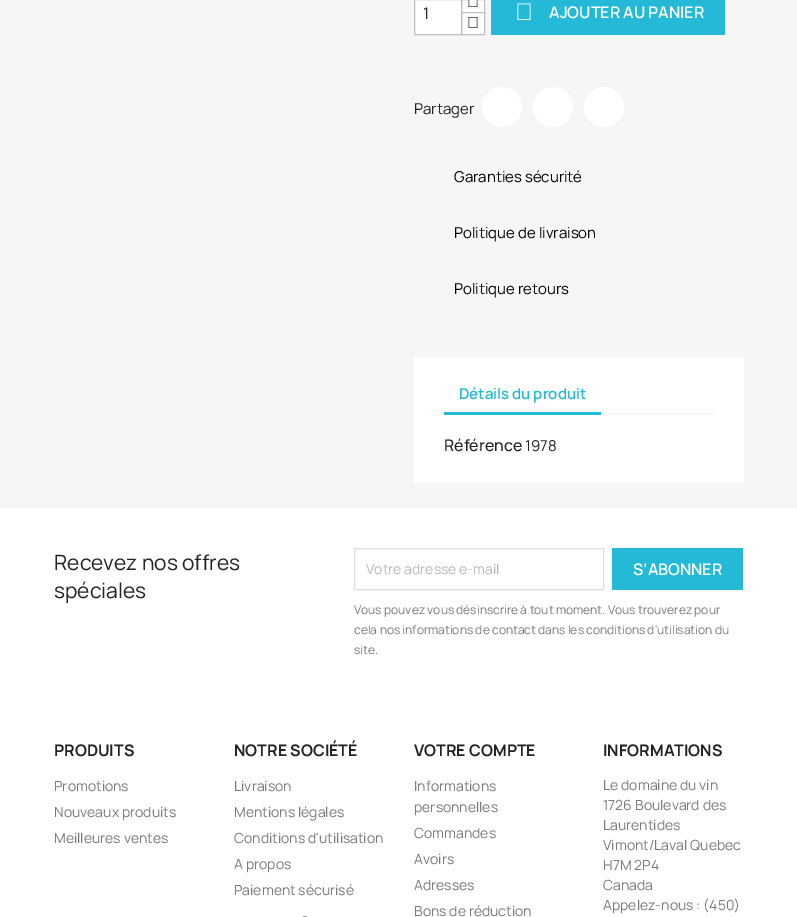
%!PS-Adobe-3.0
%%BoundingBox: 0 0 797 917
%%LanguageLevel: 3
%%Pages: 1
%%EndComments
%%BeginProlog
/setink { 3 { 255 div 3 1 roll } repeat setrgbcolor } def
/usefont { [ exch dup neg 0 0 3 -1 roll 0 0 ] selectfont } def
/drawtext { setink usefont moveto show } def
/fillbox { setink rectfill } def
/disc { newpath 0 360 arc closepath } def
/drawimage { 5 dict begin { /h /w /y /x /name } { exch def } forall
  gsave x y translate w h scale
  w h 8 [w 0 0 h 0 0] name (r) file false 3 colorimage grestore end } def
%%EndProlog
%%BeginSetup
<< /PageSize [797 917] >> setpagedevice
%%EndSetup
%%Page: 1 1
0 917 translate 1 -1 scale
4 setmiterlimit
0 0 797 917 255 255 255 fillbox
0 0 797 508 246 246 246 fillbox
462 0 22 12 255 255 255 fillbox
191 191 191 setink
461.5 -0.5 23 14 rectstroke
255 255 255 setink
461.5 12.5 moveto 484.5 12.5 lineto 484.5 34.5 lineto 461.5 34.5 lineto closepath gsave fill grestore
191 191 191 setink
stroke
255 255 255 setink
414.5 -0.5 moveto 461.5 -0.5 lineto 461.5 34.5 lineto 414.5 34.5 lineto closepath gsave fill grestore
191 191 191 setink
stroke
(1) 423 19 /Manrope-Regular 16 35 35 35 drawtext
(assets/img1.rgb) 468 0 10 7 drawimage
(assets/img2.rgb) 468 17 10 11 drawimage
491 0 234 35 36 185 215 fillbox
(assets/img3.rgb) 517 3 14 17 drawimage
(AJOUTER AU PANIER) 549 18 /Manrope-SemiBold 16 255 255 255 drawtext
(Partager) 414 114 /Manrope-Regular 15 35 35 35 drawtext
255 255 255 setink
502 107 20 disc fill
553 107 20 disc fill
604 107 20 disc fill
(Garanties sécurité) 454 182 /Manrope-Regular 15 0 0 0 drawtext
(Politique de livraison) 454 238 /Manrope-Regular 15 0 0 0 drawtext
(Politique retours) 454 294 /Manrope-Regular 15 0 0 0 drawtext
414 357 330 126 255 255 255 fillbox
601 413 113 2 246 246 246 fillbox
444 412 157 3 36 185 215 fillbox
(Détails du produit) 459 399 /Manrope-SemiBold 15 36 185 215 drawtext
(Référence) 444 451 /Manrope-Medium 16 35 35 35 drawtext
(1978) 525 451 /Manrope-Regular 15 35 35 35 drawtext
(Recevez nos offres) 54 570 /Manrope-Regular 21 35 35 35 drawtext
(spéciales) 54 598 /Manrope-Regular 21 35 35 35 drawtext
221 221 221 setink
354.5 548.5 249 41 rectstroke
(Votre adresse e-mail) 366 574 /Manrope-Regular 14 183 183 183 drawtext
612 548 131 42 36 185 215 fillbox
(S’ABONNER) 633 575 /Manrope-SemiBold 16 255 255 255 drawtext
(Vous pouvez vous désinscrire à tout moment. Vous trouverez pour) 354 614 /Manrope-Regular 12 122 122 122 drawtext
(cela nos informations de contact dans les conditions d'utilisation du) 354 634 /Manrope-Regular 12 122 122 122 drawtext
(site.) 354 654 /Manrope-Regular 12 122 122 122 drawtext
(PRODUITS) 54 756 /Manrope-Bold 16 35 35 35 drawtext
(Promotions) 54 791 /Manrope-Regular 14 122 122 122 drawtext
(Nouveaux produits) 54 817 /Manrope-Regular 14 122 122 122 drawtext
(Meilleures ventes) 54 843 /Manrope-Regular 14 122 122 122 drawtext
(NOTRE SOCIÉTÉ) 234 756 /Manrope-Bold 16 35 35 35 drawtext
(Livraison) 234 791 /Manrope-Regular 14 122 122 122 drawtext
(Mentions légales) 234 817 /Manrope-Regular 14 122 122 122 drawtext
(Conditions d'utilisation) 234 843 /Manrope-Regular 14 122 122 122 drawtext
(A propos) 234 869 /Manrope-Regular 14 122 122 122 drawtext
(Paiement sécurisé) 234 895 /Manrope-Regular 14 122 122 122 drawtext
(-) 302 921 /Manrope-Regular 14 122 122 122 drawtext
(VOTRE COMPTE) 414 756 /Manrope-Bold 16 35 35 35 drawtext
(Informations) 414 791 /Manrope-Regular 14 122 122 122 drawtext
(personnelles) 414 812 /Manrope-Regular 14 122 122 122 drawtext
(Commandes) 414 838 /Manrope-Regular 14 122 122 122 drawtext
(Avoirs) 414 864 /Manrope-Regular 14 122 122 122 drawtext
(Adresses) 414 890 /Manrope-Regular 14 122 122 122 drawtext
(Bons de réduction) 414 916 /Manrope-Regular 14 122 122 122 drawtext
(INFORMATIONS) 603 756 /Manrope-Bold 16 35 35 35 drawtext
(Le domaine du vin) 603 790 /Manrope-Regular 14 122 122 122 drawtext
(1726 Boulevard des) 603 810 /Manrope-Regular 14 122 122 122 drawtext
(Laurentides) 603 830 /Manrope-Regular 14 122 122 122 drawtext
(Vimont/Laval Quebec) 603 850 /Manrope-Regular 14 122 122 122 drawtext
(H7M 2P4) 603 870 /Manrope-Regular 14 122 122 122 drawtext
(Canada) 603 890 /Manrope-Regular 14 122 122 122 drawtext
(Appelez-nous : \(450\)) 603 910 /Manrope-Regular 14 122 122 122 drawtext
showpage
%%EOF
